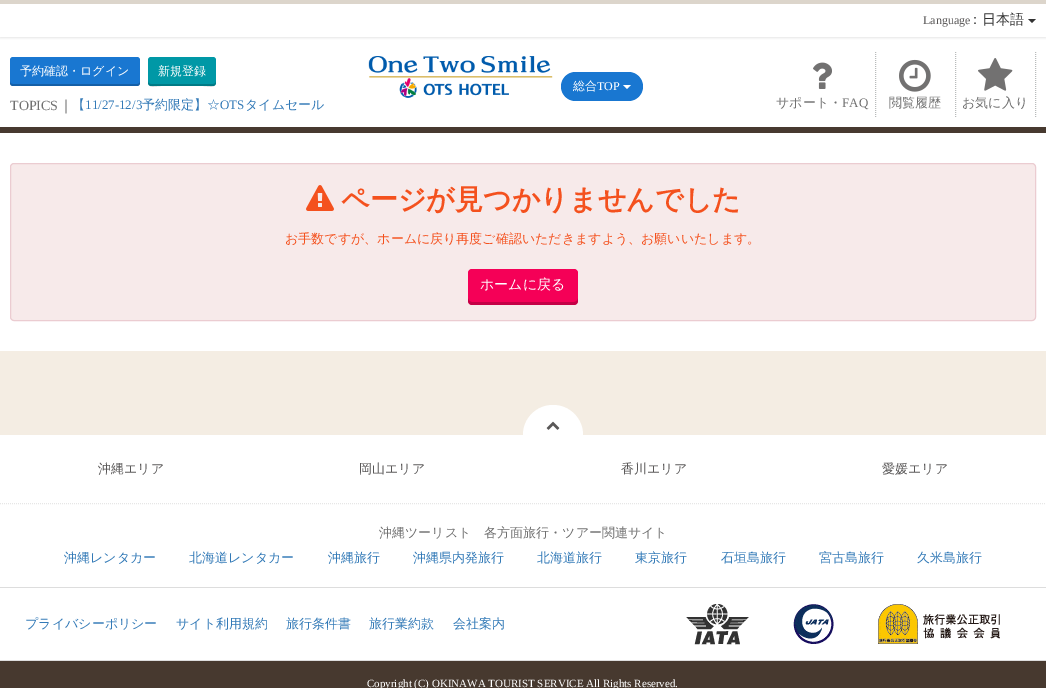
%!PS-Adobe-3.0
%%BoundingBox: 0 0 1046 688
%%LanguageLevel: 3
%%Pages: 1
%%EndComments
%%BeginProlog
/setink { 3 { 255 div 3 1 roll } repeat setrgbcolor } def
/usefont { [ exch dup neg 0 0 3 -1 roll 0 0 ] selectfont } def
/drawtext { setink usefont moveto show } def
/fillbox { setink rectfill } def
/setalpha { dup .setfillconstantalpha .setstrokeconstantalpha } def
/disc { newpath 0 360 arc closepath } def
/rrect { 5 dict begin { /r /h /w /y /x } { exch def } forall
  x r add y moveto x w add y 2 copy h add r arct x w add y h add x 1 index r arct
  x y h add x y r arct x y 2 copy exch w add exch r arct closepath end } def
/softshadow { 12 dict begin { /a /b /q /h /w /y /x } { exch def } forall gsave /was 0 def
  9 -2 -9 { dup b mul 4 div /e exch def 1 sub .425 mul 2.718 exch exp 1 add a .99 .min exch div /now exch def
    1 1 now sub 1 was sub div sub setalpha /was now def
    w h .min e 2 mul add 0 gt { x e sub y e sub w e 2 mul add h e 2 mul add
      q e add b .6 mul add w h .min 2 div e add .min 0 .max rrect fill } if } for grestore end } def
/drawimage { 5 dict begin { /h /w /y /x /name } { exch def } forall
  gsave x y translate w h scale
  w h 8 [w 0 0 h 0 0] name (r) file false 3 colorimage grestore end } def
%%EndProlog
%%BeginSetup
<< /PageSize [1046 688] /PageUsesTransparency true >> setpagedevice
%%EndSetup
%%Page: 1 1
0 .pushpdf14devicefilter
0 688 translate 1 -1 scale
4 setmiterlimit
0 0 1046 688 255 255 255 fillbox
gsave
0 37 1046 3 rectclip
225 225 225 setink
0 1 1046 37 0 1 0.9 softshadow
grestore
0 0 1046 4 220 213 203 fillbox
(Language) 923 24 /LiberationSerif-Regular 12 89 87 87 drawtext
(：日本語) 968 24 /WenQuanYiZenHei-Medium 14 51 51 51 drawtext
1028 19 moveto 1036 19 lineto 1032 23 lineto closepath fill
25 119 209 setink
10 57 130 29 3 rrect fill
0.2 setalpha
0 0 0 setink
10 81 moveto 10 83 lineto 10 85 11 86 13 86 curveto 137 86 lineto 139 86 140 85 140 83 curveto 140 81 lineto 140 83 139 84 137 84 curveto 13 84 lineto 11 84 10 83 10 81 curveto closepath fill
1 setalpha
(予約確認・ログイン) 20 75 /WenQuanYiZenHei-Medium 12 255 255 255 drawtext
0 152 166 setink
148 57 68 29 3 rrect fill
0.2 setalpha
0 0 0 setink
148 81 moveto 148 89 154 86 161 86 curveto 203 86 lineto 210 86 216 89 216 81 curveto 216 83 215 84 213 84 curveto 151 84 lineto 149 84 148 83 148 81 curveto closepath fill
1 setalpha
(新規登録) 158 75 /WenQuanYiZenHei-Medium 12 255 255 255 drawtext
(TOPICS) 10 110 /LiberationSerif-Regular 14 113 113 113 drawtext
(｜) 59 110 /WenQuanYiZenHei-Medium 14 113 113 113 drawtext
(【) 72 109 /WenQuanYiZenHei-Medium 13 51 122 183 drawtext
(11/27-12/3) 85 109 /LiberationSerif-Regular 13 51 122 183 drawtext
(予約限定】☆) 142 109 /WenQuanYiZenHei-Medium 13 51 122 183 drawtext
(OTS) 220 109 /LiberationSerif-Regular 13 51 122 183 drawtext
(タイムセール) 245 109 /WenQuanYiZenHei-Medium 13 51 122 183 drawtext
(assets/img1.rgb) 368 56 185 42 drawimage
25 119 209 setink
561 72 82 29 14.5 rrect fill
(総合) 573 90 /WenQuanYiZenHei-Medium 12 255 255 255 drawtext
(TOP) 597 90 /LiberationSerif-Regular 12 255 255 255 drawtext
623 85 moveto 631 85 lineto 627 89 lineto closepath fill
185 187 187 setink
[1 1] 0 setdash
875.5 52 moveto 875.5 117 lineto stroke
(assets/img2.rgb) 813 62 19 27 drawimage
(サポート・) 776 107 /WenQuanYiZenHei-Medium 13 113 113 113 drawtext
(FAQ) 842 107 /LiberationSerif-Regular 13 113 113 113 drawtext
185 187 187 setink
955.5 52 moveto 955.5 117 lineto stroke
(assets/img3.rgb) 899 59 32 33 drawimage
(閲覧履歴) 889 107 /WenQuanYiZenHei-Medium 13 113 113 113 drawtext
185 187 187 setink
1035.5 52 moveto 1035.5 117 lineto stroke
(assets/img4.rgb) 978 58 35 33 drawimage
(お気に入り) 962 107 /WenQuanYiZenHei-Medium 13 113 113 113 drawtext
0 127 1046 6 71 57 48 fillbox
247 234 234 setink
10.5 163.5 1025 157 3.5 rrect gsave fill grestore
235 204 209 setink
[] 0 setdash
stroke
(assets/img5.rgb) 306 185 28 26 drawimage
(ページが見つかりませんでした) 341 209 /WenQuanYiZenHei-Bold 28 244 81 30 drawtext
(お手数ですが、ホームに戻り再度ご確認いただきますよう、お願いいたします。) 285 243 /WenQuanYiZenHei-Medium 13 244 81 30 drawtext
245 0 87 setink
468 269 110 36 4 rrect fill
0.2 setalpha
0 0 0 setink
468 298 moveto 468 301 lineto 468 303 470 305 472 305 curveto 574 305 lineto 576 305 578 303 578 301 curveto 578 298 lineto 578 300 576 302 574 302 curveto 472 302 lineto 470 302 468 300 468 298 curveto closepath fill
1 setalpha
(ホームに戻る) 480 289 /WenQuanYiZenHei-Medium 14 255 255 255 drawtext
0 351 1046 84 244 237 227 fillbox
255 255 255 setink
553 435 30 disc fill
(assets/img6.rgb) 546 421 14 9 drawimage
0 660 1046 1 221 221 221 fillbox
(沖縄エリア) 98 473 /WenQuanYiZenHei-Medium 13 89 87 87 drawtext
(岡山エリア) 359 473 /WenQuanYiZenHei-Medium 13 89 87 87 drawtext
(香川エリア) 621 473 /WenQuanYiZenHei-Medium 13 89 87 87 drawtext
(愛媛エリア) 882 473 /WenQuanYiZenHei-Medium 13 89 87 87 drawtext
230 230 230 setink
[1 1] 0 setdash
0 503.5 moveto 1046 503.5 lineto stroke
(沖縄ツーリスト　各方面旅行・ツアー関連サイト) 379 537 /WenQuanYiZenHei-Medium 13 113 113 113 drawtext
(沖縄レンタカー) 64 562 /WenQuanYiZenHei-Medium 13 51 122 183 drawtext
(北海道レンタカー) 189 562 /WenQuanYiZenHei-Medium 13 51 122 183 drawtext
(沖縄旅行) 328 562 /WenQuanYiZenHei-Medium 13 51 122 183 drawtext
(沖縄県内発旅行) 413 562 /WenQuanYiZenHei-Medium 13 51 122 183 drawtext
(北海道旅行) 537 562 /WenQuanYiZenHei-Medium 13 51 122 183 drawtext
(東京旅行) 635 562 /WenQuanYiZenHei-Medium 13 51 122 183 drawtext
(石垣島旅行) 721 562 /WenQuanYiZenHei-Medium 13 51 122 183 drawtext
(宮古島旅行) 819 562 /WenQuanYiZenHei-Medium 13 51 122 183 drawtext
(久米島旅行) 917 562 /WenQuanYiZenHei-Medium 13 51 122 183 drawtext
0 587 1046 1 221 221 221 fillbox
(プライバシーポリシー) 25 628 /WenQuanYiZenHei-Medium 13 51 122 183 drawtext
(サイト利用規約) 176 628 /WenQuanYiZenHei-Medium 13 51 122 183 drawtext
(旅行条件書) 286 628 /WenQuanYiZenHei-Medium 13 51 122 183 drawtext
(旅行業約款) 369 628 /WenQuanYiZenHei-Medium 13 51 122 183 drawtext
(会社案内) 453 628 /WenQuanYiZenHei-Medium 13 51 122 183 drawtext
(assets/img7.rgb) 686 604 63 41 drawimage
(assets/img8.rgb) 793 604 41 40 drawimage
(assets/img9.rgb) 878 604 122 40 drawimage
0 661 1046 27 71 57 47 fillbox
(Copyright \(C\) OKINAWA TOURIST SERVICE All Rights Reserved.) 367 687 /LiberationSerif-Regular 11 255 255 255 drawtext
.poppdf14devicefilter showpage
%%EOF
